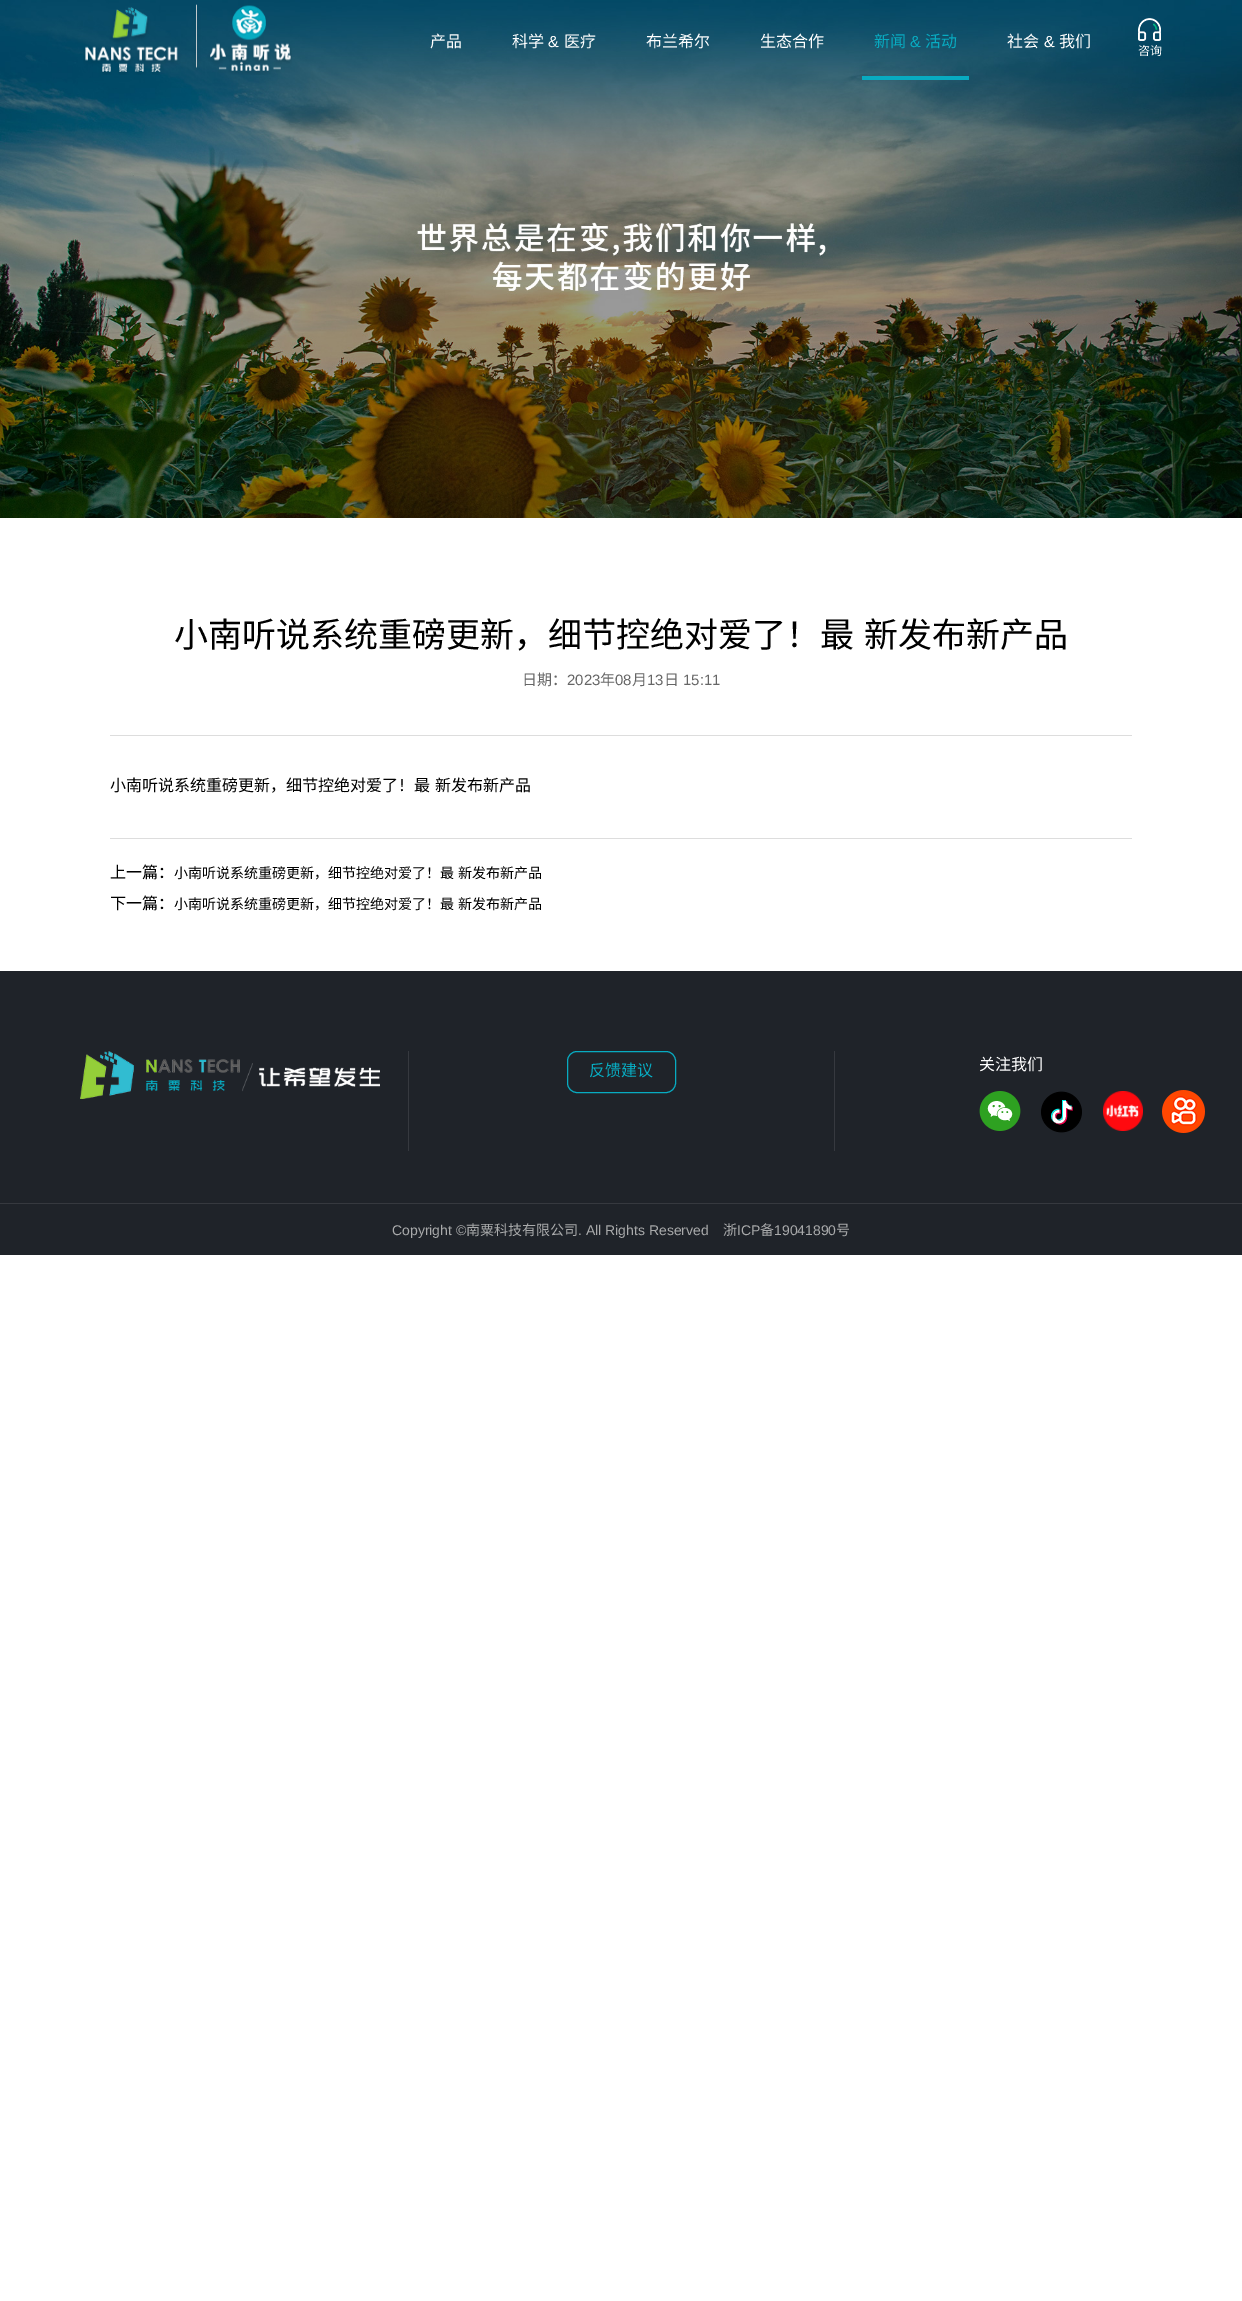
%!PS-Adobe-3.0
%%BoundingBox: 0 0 1242 2301
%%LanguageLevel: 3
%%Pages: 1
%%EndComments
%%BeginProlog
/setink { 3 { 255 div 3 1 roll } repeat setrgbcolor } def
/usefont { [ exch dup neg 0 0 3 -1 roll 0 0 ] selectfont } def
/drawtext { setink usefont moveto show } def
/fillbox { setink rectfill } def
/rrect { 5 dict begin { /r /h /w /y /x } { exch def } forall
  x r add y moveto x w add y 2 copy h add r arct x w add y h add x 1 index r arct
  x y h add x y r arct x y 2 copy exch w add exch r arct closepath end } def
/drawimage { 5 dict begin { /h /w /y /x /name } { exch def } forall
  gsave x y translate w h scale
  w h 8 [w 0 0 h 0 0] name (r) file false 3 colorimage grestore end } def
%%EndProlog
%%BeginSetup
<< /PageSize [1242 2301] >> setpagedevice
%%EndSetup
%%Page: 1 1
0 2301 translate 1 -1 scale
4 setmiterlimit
0 0 1242 2301 255 255 255 fillbox
(assets/img1.rgb) 0 0 1242 518 drawimage
(assets/img2.rgb) 83 4 209 71 drawimage
(产品) 430 47 /NotoSansCJKSC-Regular 16 255 255 255 drawtext
(科学) 512 47 /NotoSansCJKSC-Regular 16 255 255 255 drawtext
(&) 548 47 /LiberationSans-Regular 16 255 255 255 drawtext
(医疗) 564 47 /NotoSansCJKSC-Regular 16 255 255 255 drawtext
(布兰希尔) 646 47 /NotoSansCJKSC-Regular 16 255 255 255 drawtext
(生态合作) 760 47 /NotoSansCJKSC-Regular 16 255 255 255 drawtext
(新闻) 874 47 /NotoSansCJKSC-Regular 16 8 171 193 drawtext
(&) 910 47 /LiberationSans-Regular 16 8 171 193 drawtext
(活动) 925 47 /NotoSansCJKSC-Regular 16 8 171 193 drawtext
862 76 107 4 8 171 193 fillbox
(社会) 1007 47 /NotoSansCJKSC-Regular 16 255 255 255 drawtext
(&) 1044 47 /LiberationSans-Regular 16 255 255 255 drawtext
(我们) 1059 47 /NotoSansCJKSC-Regular 16 255 255 255 drawtext
(assets/img3.rgb) 1138 18 23 23 drawimage
(咨询) 1138 55 /NotoSansCJKSC-Regular 12 255 255 255 drawtext
110 735 1022 1 221 221 221 fillbox
/NotoSansCJKSC-Regular 34 usefont
0 0 0 setink
174 647 moveto 2 0 32 (小南听说系统重磅更新，细节控绝对爱了！最 新发布新产品) widthshow
(日期：) 522 685 /NotoSansCJKSC-Regular 15 102 102 102 drawtext
(2023) 567 685 /LiberationSans-Regular 15 102 102 102 drawtext
(年) 600 685 /NotoSansCJKSC-Regular 15 102 102 102 drawtext
(08) 615 685 /LiberationSans-Regular 15 102 102 102 drawtext
(月) 632 685 /NotoSansCJKSC-Regular 15 102 102 102 drawtext
(13) 647 685 /LiberationSans-Regular 15 102 102 102 drawtext
(日) 664 685 /NotoSansCJKSC-Regular 15 102 102 102 drawtext
(15:11) 683 685 /LiberationSans-Regular 15 102 102 102 drawtext
/NotoSansCJKSC-Regular 16 usefont
0 0 0 setink
110 791 moveto 1 0 32 (小南听说系统重磅更新，细节控绝对爱了！最 新发布新产品) widthshow
110 838 1022 1 221 221 221 fillbox
(上一篇：) 110 878 /NotoSansCJKSC-Regular 16 0 0 0 drawtext
/NotoSansCJKSC-Regular 14 usefont
174 878 moveto 1 0 32 (小南听说系统重磅更新，细节控绝对爱了！最 新发布新产品) widthshow
(下一篇：) 110 909 /NotoSansCJKSC-Regular 16 0 0 0 drawtext
/NotoSansCJKSC-Regular 14 usefont
174 909 moveto 1 0 32 (小南听说系统重磅更新，细节控绝对爱了！最 新发布新产品) widthshow
0 971 1242 284 31 35 41 fillbox
(assets/img4.rgb) 80 1051 300 48 drawimage
408 1051 1 100 54 57 63 fillbox
8 171 193 setink
567.5 1051.5 108 41 9.5 rrect stroke
(反馈建议) 589 1076 /NotoSansCJKSC-Regular 16 8 171 193 drawtext
834 1051 1 100 54 57 63 fillbox
(关注我们) 979 1070 /NotoSansCJKSC-Regular 16 255 255 255 drawtext
(assets/img5.rgb) 979 1091 42 40 drawimage
(assets/img6.rgb) 1041 1091 41 42 drawimage
(assets/img7.rgb) 1103 1091 40 40 drawimage
(assets/img8.rgb) 1162 1090 43 43 drawimage
0 1203 1242 1 54 57 63 fillbox
(Copyright ©) 392 1235 /LiberationSans-Regular 14 169 170 171 drawtext
(南粟科技有限公司) 466 1235 /NotoSansCJKSC-Regular 14 169 170 171 drawtext
(. All Rights Reserved) 578 1235 /LiberationSans-Regular 14 169 170 171 drawtext
(浙) 723 1235 /NotoSansCJKSC-Regular 14 169 170 171 drawtext
(ICP) 737 1235 /LiberationSans-Regular 14 169 170 171 drawtext
(备) 760 1235 /NotoSansCJKSC-Regular 14 169 170 171 drawtext
(19041890) 774 1235 /LiberationSans-Regular 14 169 170 171 drawtext
(号) 836 1235 /NotoSansCJKSC-Regular 14 169 170 171 drawtext
showpage
%%EOF
